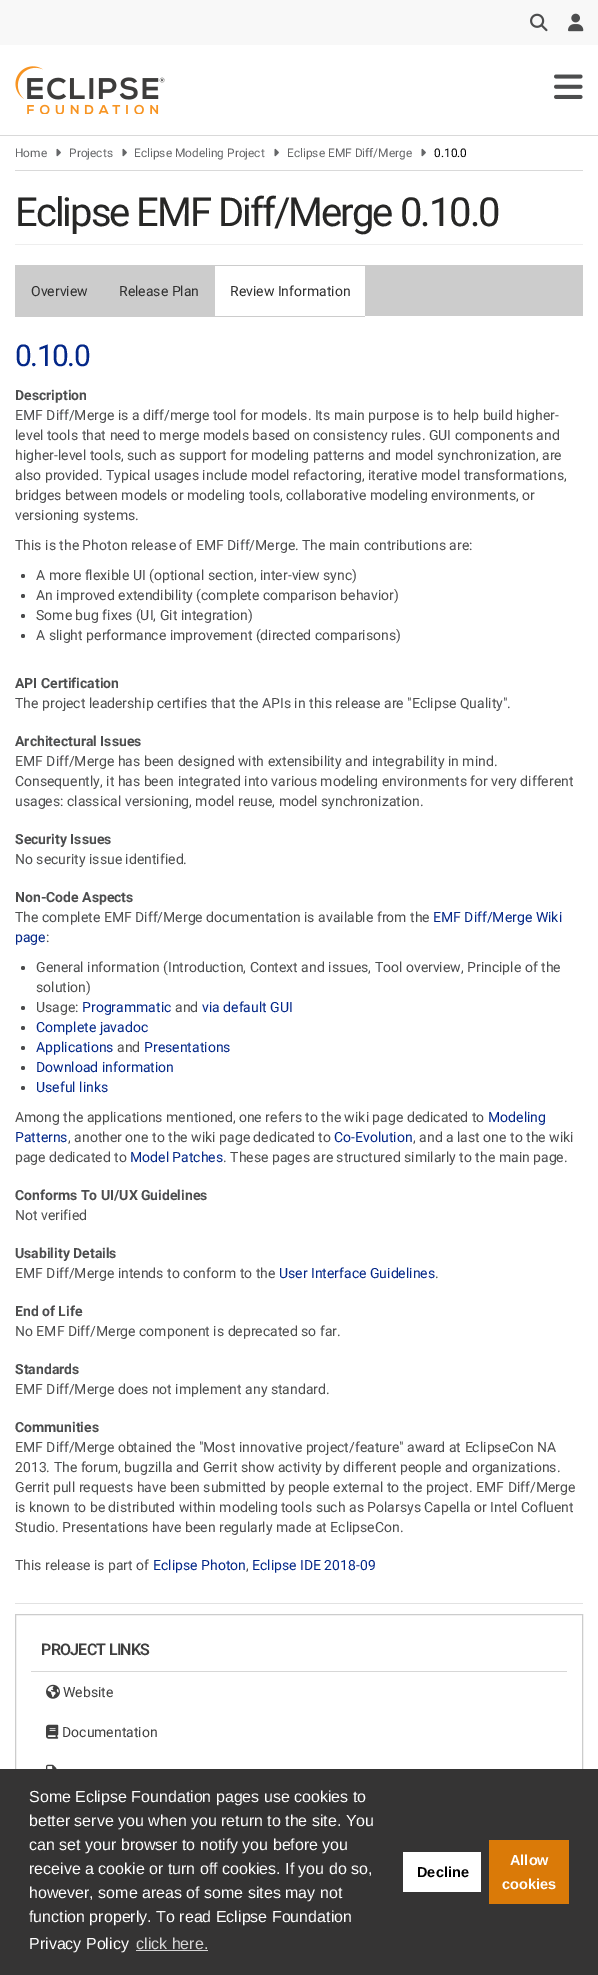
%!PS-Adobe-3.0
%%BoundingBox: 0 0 598 1975
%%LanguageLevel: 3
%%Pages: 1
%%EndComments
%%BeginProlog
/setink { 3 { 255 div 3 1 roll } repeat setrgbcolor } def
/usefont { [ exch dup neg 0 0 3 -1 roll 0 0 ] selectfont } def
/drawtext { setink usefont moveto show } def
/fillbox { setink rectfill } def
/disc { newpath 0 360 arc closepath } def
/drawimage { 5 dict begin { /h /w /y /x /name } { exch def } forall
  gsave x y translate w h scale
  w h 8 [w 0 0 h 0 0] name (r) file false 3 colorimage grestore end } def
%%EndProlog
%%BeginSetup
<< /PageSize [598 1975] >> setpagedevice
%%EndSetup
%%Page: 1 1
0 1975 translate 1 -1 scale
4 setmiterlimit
0 0 598 1975 255 255 255 fillbox
0 0 598 45 248 248 248 fillbox
(assets/img1.rgb) 530 13 18 19 drawimage
(assets/img2.rgb) 568 13 16 19 drawimage
0 135 598 1 217 217 217 fillbox
(assets/img3.rgb) 15 66 150 48 drawimage
(assets/img4.rgb) 554 74 29 25 drawimage
15 170 568 1 217 217 217 fillbox
(Home) 15 157 /Roboto-Regular 11.9 101 102 104 drawtext
(assets/img5.rgb) 56 148 5 9 drawimage
(Projects) 69 157 /Roboto-Regular 11.9 101 102 104 drawtext
(assets/img5.rgb) 122 148 5 9 drawimage
(Eclipse Modeling Project) 134 157 /Roboto-Regular 11.9 101 102 104 drawtext
(assets/img5.rgb) 274 148 5 9 drawimage
(Eclipse EMF Diff/Merge) 287 157 /Roboto-Regular 11.9 101 102 104 drawtext
(assets/img5.rgb) 421 148 5 9 drawimage
(0.10.0) 434 157 /Roboto-Regular 11.9 0 0 0 drawtext
15 244 568 1 238 238 238 fillbox
/Roboto-Regular 40 usefont
39 39 38 setink
15 226 moveto -2 0 (Eclipse EMF Diff/Merge 0.10.0) ashow
365 265 218 51 204 204 204 fillbox
15 265 199 52 204 204 204 fillbox
(Overview) 31 296 /Roboto-Regular 14 47 47 47 drawtext
(Release Plan) 119 296 /Roboto-Regular 14 47 47 47 drawtext
214 265 151 1 204 204 204 fillbox
214 316 151 1 204 204 204 fillbox
214 265 1 52 204 204 204 fillbox
(Review Information) 230 296 /Roboto-Regular 14 47 47 47 drawtext
15 1603 568 1 226 226 226 fillbox
/Roboto-Regular 30 usefont
3 39 136 setink
15 366 moveto -1.5 0 (0.10.0) ashow
(Description) 15 400 /Roboto-Bold 14 76 77 78 drawtext
(EMF Diff/Merge is a diff/merge tool for models. Its main purpose is to help build higher-) 15 420 /Roboto-Regular 14 76 77 78 drawtext
(level tools that need to merge models based on consistency rules. GUI components and) 15 440 /Roboto-Regular 14 76 77 78 drawtext
(higher-level tools, such as support for modeling patterns and model synchronization, are) 15 460 /Roboto-Regular 14 76 77 78 drawtext
(also provided. Typical usages include model refactoring, iterative model transformations,) 15 480 /Roboto-Regular 14 76 77 78 drawtext
(bridges between models or modeling tools, collaborative modeling environments, or) 15 500 /Roboto-Regular 14 76 77 78 drawtext
(versioning systems.) 15 520 /Roboto-Regular 14 76 77 78 drawtext
(This is the Photon release of EMF Diff/Merge. The main contributions are:) 15 550 /Roboto-Regular 14 76 77 78 drawtext
23 576 2 disc fill
(A more flexible UI \(optional section, inter-view sync\)) 36 580 /Roboto-Regular 14 76 77 78 drawtext
23 596 2 disc fill
(An improved extendibility \(complete comparison behavior\)) 36 600 /Roboto-Regular 14 76 77 78 drawtext
23 616 2 disc fill
(Some bug fixes \(UI, Git integration\)) 36 620 /Roboto-Regular 14 76 77 78 drawtext
23 636 2 disc fill
(A slight performance improvement \(directed comparisons\)) 36 640 /Roboto-Regular 14 76 77 78 drawtext
(API Certification) 15 688 /Roboto-Bold 14 76 77 78 drawtext
(The project leadership certifies that the APIs in this release are "Eclipse Quality".) 15 708 /Roboto-Regular 14 76 77 78 drawtext
(Architectural Issues) 15 746 /Roboto-Bold 14 76 77 78 drawtext
(EMF Diff/Merge has been designed with extensibility and integrability in mind.) 15 766 /Roboto-Regular 14 76 77 78 drawtext
(Consequently, it has been integrated into various modeling environments for very different) 15 786 /Roboto-Regular 14 76 77 78 drawtext
(usages: classical versioning, model reuse, model synchronization.) 15 806 /Roboto-Regular 14 76 77 78 drawtext
(Security Issues) 15 844 /Roboto-Bold 14 76 77 78 drawtext
(No security issue identified.) 15 864 /Roboto-Regular 14 76 77 78 drawtext
(Non-Code Aspects) 15 902 /Roboto-Bold 14 76 77 78 drawtext
(The complete EMF Diff/Merge documentation is available from the) 15 922 /Roboto-Regular 14 76 77 78 drawtext
(EMF Diff/Merge Wiki) 433 922 /Roboto-Regular 14 3 39 136 drawtext
(page) 15 942 /Roboto-Regular 14 3 39 136 drawtext
(:) 46 942 /Roboto-Regular 14 76 77 78 drawtext
23 968 2 disc fill
(General information \(Introduction, Context and issues, Tool overview, Principle of the) 36 972 /Roboto-Regular 14 76 77 78 drawtext
(solution\)) 36 992 /Roboto-Regular 14 76 77 78 drawtext
23 1008 2 disc fill
(Usage:) 36 1012 /Roboto-Regular 14 76 77 78 drawtext
(Programmatic) 82 1012 /Roboto-Regular 14 3 39 136 drawtext
(and) 175 1012 /Roboto-Regular 14 76 77 78 drawtext
(via default GUI) 202 1012 /Roboto-Regular 14 3 39 136 drawtext
76 77 78 setink
23 1028 2 disc fill
(Complete javadoc) 36 1032 /Roboto-Regular 14 3 39 136 drawtext
76 77 78 setink
23 1048 2 disc fill
(Applications) 36 1052 /Roboto-Regular 14 3 39 136 drawtext
(and) 117 1052 /Roboto-Regular 14 76 77 78 drawtext
(Presentations) 144 1052 /Roboto-Regular 14 3 39 136 drawtext
76 77 78 setink
23 1068 2 disc fill
(Download information) 36 1072 /Roboto-Regular 14 3 39 136 drawtext
76 77 78 setink
23 1088 2 disc fill
(Useful links) 36 1092 /Roboto-Regular 14 3 39 136 drawtext
(Among the applications mentioned, one refers to the wiki page dedicated to) 15 1122 /Roboto-Regular 14 76 77 78 drawtext
(Modeling) 488 1122 /Roboto-Regular 14 3 39 136 drawtext
(Patterns) 15 1142 /Roboto-Regular 14 3 39 136 drawtext
(, another one to the wiki page dedicated to) 68 1142 /Roboto-Regular 14 76 77 78 drawtext
(Co-Evolution) 334 1142 /Roboto-Regular 14 3 39 136 drawtext
(, and a last one to the wiki) 413 1142 /Roboto-Regular 14 76 77 78 drawtext
(page dedicated to) 15 1162 /Roboto-Regular 14 76 77 78 drawtext
(Model Patches) 130 1162 /Roboto-Regular 14 3 39 136 drawtext
(. These pages are structured similarly to the main page.) 223 1162 /Roboto-Regular 14 76 77 78 drawtext
(Conforms To UI/UX Guidelines) 15 1200 /Roboto-Bold 14 76 77 78 drawtext
(Not verified) 15 1220 /Roboto-Regular 14 76 77 78 drawtext
(Usability Details) 15 1258 /Roboto-Bold 14 76 77 78 drawtext
(EMF Diff/Merge intends to conform to the) 15 1278 /Roboto-Regular 14 76 77 78 drawtext
(User Interface Guidelines) 279 1278 /Roboto-Regular 14 3 39 136 drawtext
(.) 435 1278 /Roboto-Regular 14 76 77 78 drawtext
(End of Life) 15 1316 /Roboto-Bold 14 76 77 78 drawtext
(No EMF Diff/Merge component is deprecated so far.) 15 1336 /Roboto-Regular 14 76 77 78 drawtext
(Standards) 15 1374 /Roboto-Bold 14 76 77 78 drawtext
(EMF Diff/Merge does not implement any standard.) 15 1394 /Roboto-Regular 14 76 77 78 drawtext
(Communities) 15 1432 /Roboto-Bold 14 76 77 78 drawtext
(EMF Diff/Merge obtained the "Most innovative project/feature" award at EclipseCon NA) 15 1452 /Roboto-Regular 14 76 77 78 drawtext
(2013. The forum, bugzilla and Gerrit show activity by different people and organizations.) 15 1472 /Roboto-Regular 14 76 77 78 drawtext
(Gerrit pull requests have been submitted by people external to the project. EMF Diff/Merge) 15 1492 /Roboto-Regular 14 76 77 78 drawtext
(is known to be distributed within modeling tools such as Polarsys Capella or Intel Cofluent) 15 1512 /Roboto-Regular 14 76 77 78 drawtext
(Studio. Presentations have been regularly made at EclipseCon.) 15 1532 /Roboto-Regular 14 76 77 78 drawtext
(This release is part of) 15 1570 /Roboto-Regular 14 76 77 78 drawtext
(Eclipse Photon) 153 1570 /Roboto-Regular 14 3 39 136 drawtext
(,) 246 1570 /Roboto-Regular 14 76 77 78 drawtext
(Eclipse IDE 2018-09) 252 1570 /Roboto-Regular 14 3 39 136 drawtext
204 204 204 setink
15.5 1614.5 567 313 rectstroke
31 1671 536 1 215 215 215 fillbox
/Roboto-SemiBold 16 usefont
64 64 64 setink
41 1655 moveto -0.75 0 (PROJECT LINKS) ashow
(assets/img6.rgb) 46 1684 14 15 drawimage
(Website) 63 1697 /Roboto-Regular 14 64 64 64 drawtext
(assets/img7.rgb) 46 1724 13 15 drawimage
(Documentation) 62 1737 /Roboto-Regular 14 64 64 64 drawtext
(assets/img8.rgb) 46 1764 11 5 drawimage
0 1769 598 206 53 52 52 fillbox
(Some Eclipse Foundation pages use cookies to) 29 1802 /LiberationSans-Regular 16 255 255 255 drawtext
(better serve you when you return to the site. You) 29 1826 /LiberationSans-Regular 16 255 255 255 drawtext
(can set your browser to notify you before you) 29 1850 /LiberationSans-Regular 16 255 255 255 drawtext
(receive a cookie or turn off cookies. If you do so,) 29 1874 /LiberationSans-Regular 16 255 255 255 drawtext
(however, some areas of some sites may not) 29 1898 /LiberationSans-Regular 16 255 255 255 drawtext
(function properly. To read Eclipse Foundation) 29 1922 /LiberationSans-Regular 16 255 255 255 drawtext
(Privacy Policy) 29 1949 /LiberationSans-Regular 16 255 255 255 drawtext
(click here.) 136 1949 /LiberationSans-Regular 16 215 214 214 drawtext
136 1950 72 1 215 214 214 fillbox
403 1852 78 40 255 255 255 fillbox
(Decline) 417 1877 /LiberationSans-Bold 14.5 0 0 0 drawtext
489 1840 80 64 218 122 8 fillbox
(Allow) 510 1865 /LiberationSans-Bold 14.5 255 255 255 drawtext
(cookies) 502 1889 /LiberationSans-Bold 14.5 255 255 255 drawtext
showpage
%%EOF
